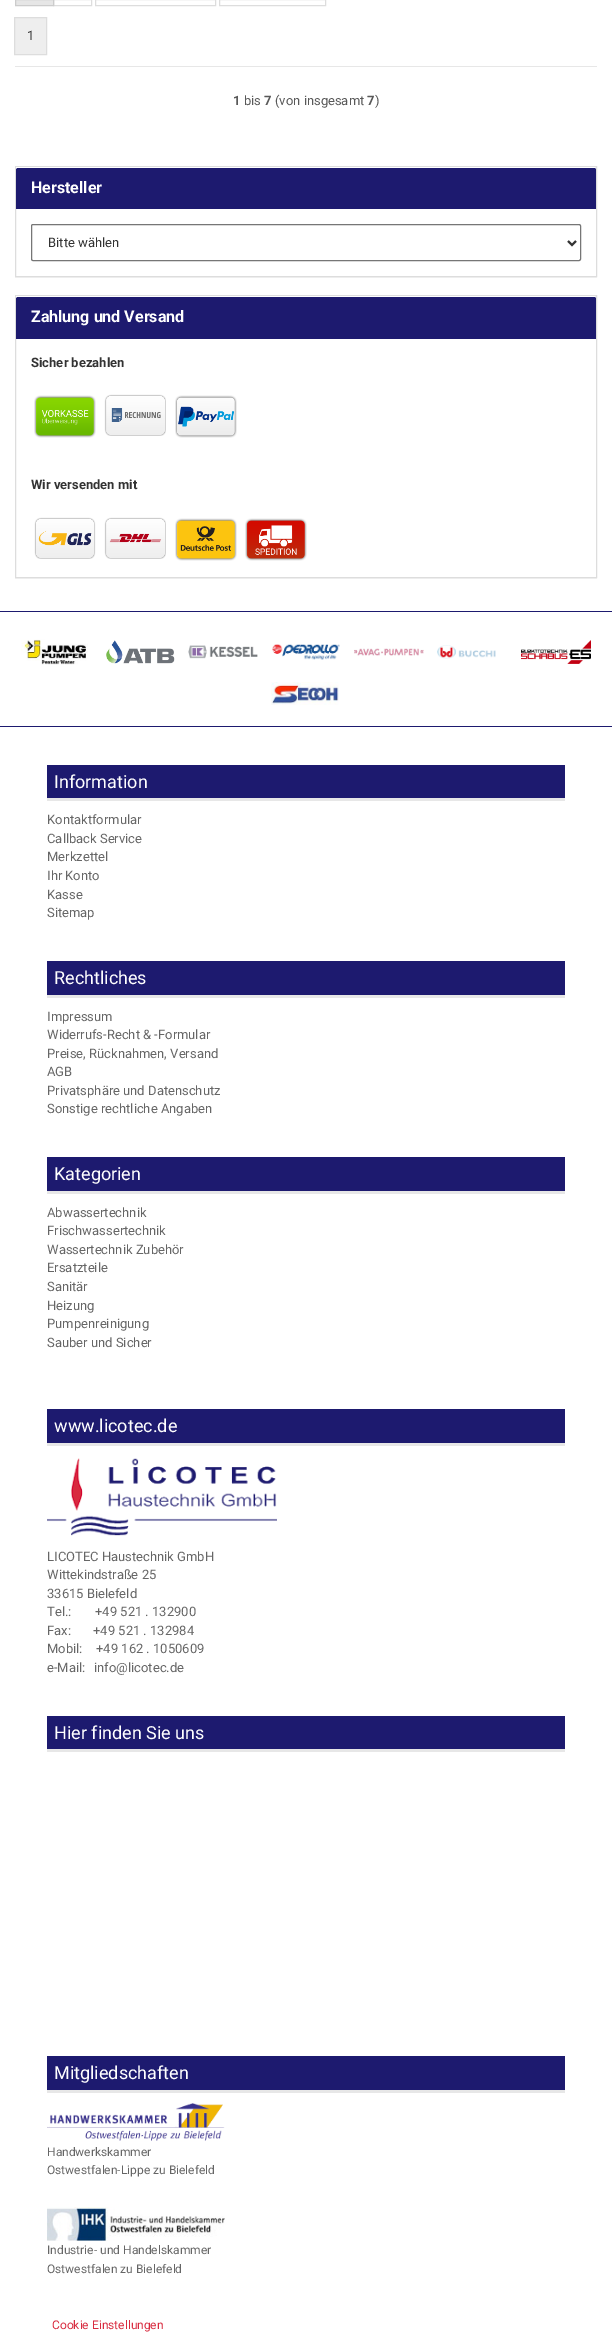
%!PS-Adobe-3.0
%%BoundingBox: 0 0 612 2345
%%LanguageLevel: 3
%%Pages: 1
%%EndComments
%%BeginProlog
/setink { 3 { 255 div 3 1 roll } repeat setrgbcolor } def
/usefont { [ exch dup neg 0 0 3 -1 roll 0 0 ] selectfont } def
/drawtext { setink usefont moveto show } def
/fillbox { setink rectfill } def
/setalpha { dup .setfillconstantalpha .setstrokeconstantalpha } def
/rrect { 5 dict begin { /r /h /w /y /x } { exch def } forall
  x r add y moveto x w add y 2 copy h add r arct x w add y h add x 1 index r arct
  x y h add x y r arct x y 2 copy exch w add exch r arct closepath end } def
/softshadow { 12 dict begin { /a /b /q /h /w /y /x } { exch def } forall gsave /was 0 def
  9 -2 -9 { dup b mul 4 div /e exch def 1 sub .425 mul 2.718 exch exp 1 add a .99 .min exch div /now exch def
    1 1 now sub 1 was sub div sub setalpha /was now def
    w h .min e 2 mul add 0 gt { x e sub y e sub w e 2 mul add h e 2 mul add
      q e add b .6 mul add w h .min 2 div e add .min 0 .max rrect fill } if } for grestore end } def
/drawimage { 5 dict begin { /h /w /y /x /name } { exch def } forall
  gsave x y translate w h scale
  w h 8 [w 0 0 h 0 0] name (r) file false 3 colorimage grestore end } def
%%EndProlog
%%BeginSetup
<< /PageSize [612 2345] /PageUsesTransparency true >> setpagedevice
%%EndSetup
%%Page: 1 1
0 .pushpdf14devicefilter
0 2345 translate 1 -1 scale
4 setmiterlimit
0 0 612 2345 255 255 255 fillbox
15 66 582 1 231 231 231 fillbox
221 221 221 setink
53.5 -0.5 38 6 rectstroke
230 230 230 setink
15.5 -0.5 moveto 53.5 -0.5 lineto 53.5 5.5 lineto 15.5 5.5 lineto closepath gsave fill grestore
204 204 204 setink
stroke
221 221 221 setink
95.5 -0.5 120 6 rectstroke
219.5 -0.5 106 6 rectstroke
238 238 238 setink
14.5 17.5 moveto 46.5 17.5 lineto 46.5 54.5 lineto 14.5 54.5 lineto closepath gsave fill grestore
221 221 221 setink
stroke
(1) 27 40 /Roboto-Regular 13 51 51 51 drawtext
(1) 233 105 /Roboto-Bold 13 89 89 89 drawtext
(bis) 244 105 /Roboto-Regular 13 89 89 89 drawtext
(7) 264 105 /Roboto-Bold 13 89 89 89 drawtext
(\(von insgesamt) 275 105 /Roboto-Regular 13 89 89 89 drawtext
(7) 367 105 /Roboto-Bold 13 89 89 89 drawtext
(\)) 375 105 /Roboto-Regular 13 89 89 89 drawtext
gsave
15 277 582 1 rectclip
0 0 0 setink
15 167 582 111 0 0.5 0.05 softshadow
grestore
221 221 221 setink
15.5 166.5 581 110 rectstroke
29 26 111 setink
17 167 moveto 595 167 lineto 595.5 167 596 167.5 596 168 curveto 596 209 lineto 16 209 lineto 16 168 lineto 16 167.5 16.5 167 17 167 curveto closepath fill
255 255 255 setink
17 168 moveto 595 168 lineto 596 168 596 168 596 169 curveto 596 168 596 167 595 167 curveto 16 167 lineto 16 169 lineto closepath fill
(Hersteller) 31 193 /Roboto-Bold 16 255 255 255 drawtext
118 118 118 setink
31.5 224.5 549 36 1.5 rrect stroke
51 51 51 setink
2 setlinewidth
568 241 moveto 572 245 lineto 576 241 lineto stroke
(Bitte wählen) 48 247 /Roboto-Regular 13 51 51 51 drawtext
gsave
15 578 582 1 rectclip
0 0 0 setink
15 296 582 283 0 0.5 0.05 softshadow
grestore
221 221 221 setink
1 setlinewidth
15.5 295.5 581 282 rectstroke
29 26 111 setink
17 296 moveto 595 296 lineto 595.5 296 596 296.5 596 297 curveto 596 339 lineto 16 339 lineto 16 297 lineto 16 296.5 16.5 296 17 296 curveto closepath fill
255 255 255 setink
17 297 moveto 595 297 lineto 596 297 596 297 596 298 curveto 596 297 596 296 595 296 curveto 16 296 lineto 16 298 lineto closepath fill
(Zahlung und Versand) 31 322 /Roboto-Bold 16 255 255 255 drawtext
(Sicher bezahlen) 31 367 /Roboto-Bold 13 51 51 51 drawtext
(assets/img1.rgb) 34 395 62 43 drawimage
(assets/img2.rgb) 104 394 62 42 drawimage
(assets/img3.rgb) 175 395 62 43 drawimage
(Wir versenden mit) 31 489 /Roboto-Bold 13 51 51 51 drawtext
(assets/img4.rgb) 34 517 62 42 drawimage
(assets/img5.rgb) 104 517 62 42 drawimage
(assets/img6.rgb) 175 518 62 43 drawimage
(assets/img7.rgb) 245 518 62 43 drawimage
0 611 612 1 29 26 111 fillbox
0 726 612 1 29 26 111 fillbox
(assets/img8.rgb) 21 639 67 26 drawimage
(assets/img9.rgb) 106 640 69 24 drawimage
(assets/img10.rgb) 188 645 70 14 drawimage
(assets/img11.rgb) 272 644 68 16 drawimage
(assets/img12.rgb) 354 648 70 8 drawimage
(assets/img13.rgb) 437 645 59 14 drawimage
(assets/img14.rgb) 521 640 70 24 drawimage
(assets/img15.rgb) 271 682 68 23 drawimage
47 765 518 33 29 26 111 fillbox
47 798 518 3 231 231 231 fillbox
(Information) 54 788 /Roboto-Regular 18 255 255 255 drawtext
(Kontaktformular) 47 824 /Roboto-Regular 13 102 102 102 drawtext
(Callback Service) 47 843 /Roboto-Regular 13 102 102 102 drawtext
(Merkzettel) 47 861 /Roboto-Regular 13 102 102 102 drawtext
(Ihr Konto) 47 880 /Roboto-Regular 13 102 102 102 drawtext
(Kasse) 47 899 /Roboto-Regular 13 102 102 102 drawtext
(Sitemap) 47 917 /Roboto-Regular 13 102 102 102 drawtext
47 961 518 34 29 26 111 fillbox
47 995 518 3 231 231 231 fillbox
(Rechtliches) 54 984 /Roboto-Regular 18 255 255 255 drawtext
(Impressum) 47 1021 /Roboto-Regular 13 102 102 102 drawtext
(Widerrufs-Recht & -Formular) 47 1039 /Roboto-Regular 13 102 102 102 drawtext
(Preise, Rücknahmen, Versand) 47 1058 /Roboto-Regular 13 102 102 102 drawtext
(AGB) 47 1076 /Roboto-Regular 13 102 102 102 drawtext
(Privatsphäre und Datenschutz) 47 1095 /Roboto-Regular 13 102 102 102 drawtext
(Sonstige rechtliche Angaben) 47 1113 /Roboto-Regular 13 102 102 102 drawtext
47 1157 518 34 29 26 111 fillbox
47 1191 518 3 231 231 231 fillbox
(Kategorien) 54 1180 /Roboto-Regular 18 255 255 255 drawtext
(Abwassertechnik) 47 1217 /Roboto-Regular 13 102 102 102 drawtext
(Frischwassertechnik) 47 1235 /Roboto-Regular 13 102 102 102 drawtext
(Wassertechnik Zubehör) 47 1254 /Roboto-Regular 13 102 102 102 drawtext
(Ersatzteile) 47 1272 /Roboto-Regular 13 102 102 102 drawtext
(Sanitär) 47 1291 /Roboto-Regular 13 102 102 102 drawtext
(Heizung) 47 1310 /Roboto-Regular 13 102 102 102 drawtext
(Pumpenreinigung) 47 1328 /Roboto-Regular 13 102 102 102 drawtext
(Sauber und Sicher) 47 1347 /Roboto-Regular 13 102 102 102 drawtext
47 1409 518 34 29 26 111 fillbox
47 1443 518 3 231 231 231 fillbox
(www.licotec.de) 54 1432 /Roboto-Regular 18 255 255 255 drawtext
(assets/img16.rgb) 47 1458 230 78 drawimage
(LICOTEC Haustechnik GmbH) 47 1561 /Roboto-Regular 13 102 102 102 drawtext
(Wittekindstraße 25) 47 1579 /Roboto-Regular 13 102 102 102 drawtext
(33615 Bielefeld) 47 1598 /Roboto-Regular 13 102 102 102 drawtext
(Tel.:) 47 1616 /Roboto-Regular 13 102 102 102 drawtext
(+49 521 . 132900) 95 1616 /Roboto-Regular 13 102 102 102 drawtext
(Fax:) 47 1635 /Roboto-Regular 13 102 102 102 drawtext
(+49 521 . 132984) 93 1635 /Roboto-Regular 13 102 102 102 drawtext
(Mobil:) 47 1653 /Roboto-Regular 13 102 102 102 drawtext
(+49 162 . 1050609) 96 1653 /Roboto-Regular 13 102 102 102 drawtext
(e-Mail:) 47 1672 /Roboto-Regular 13 102 102 102 drawtext
(info@licotec.de) 94 1672 /Roboto-Regular 13 102 102 102 drawtext
47 1716 518 33 29 26 111 fillbox
47 1749 518 3 231 231 231 fillbox
(Hier finden Sie uns) 54 1739 /Roboto-Regular 18 255 255 255 drawtext
47 2056 518 34 29 26 111 fillbox
47 2090 518 3 231 231 231 fillbox
(Mitgliedschaften) 54 2079 /Roboto-Regular 18 255 255 255 drawtext
(assets/img17.rgb) 47 2103 178 38 drawimage
(Handwerkskammer) 47 2156 /Roboto-Regular 12 102 102 102 drawtext
(Ostwestfalen-Lippe zu Bielefeld) 47 2174 /Roboto-Regular 12 102 102 102 drawtext
(assets/img18.rgb) 47 2207 178 34 drawimage
(Industrie- und Handelskammer) 47 2254 /Roboto-Regular 12 102 102 102 drawtext
(Ostwestfalen zu Bielefeld) 47 2273 /Roboto-Regular 12 102 102 102 drawtext
(Cookie Einstellungen) 52 2329 /Roboto-Regular 12 216 43 63 drawtext
.poppdf14devicefilter showpage
%%EOF
